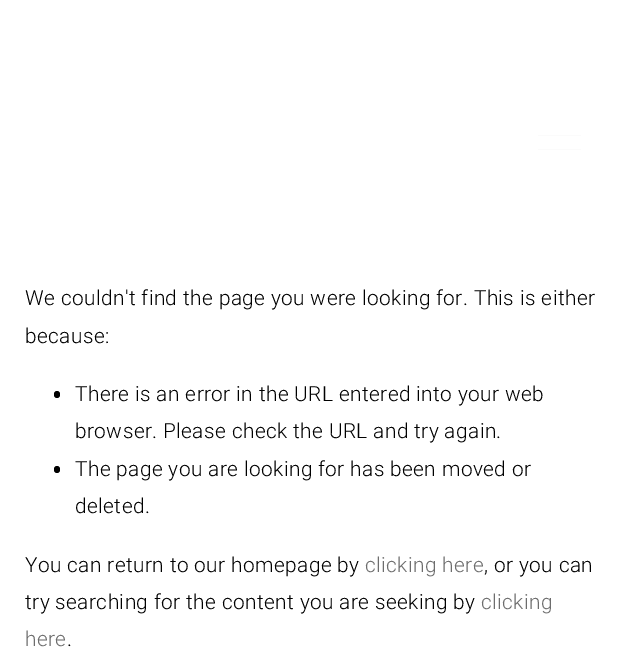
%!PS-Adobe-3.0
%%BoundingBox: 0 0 626 661
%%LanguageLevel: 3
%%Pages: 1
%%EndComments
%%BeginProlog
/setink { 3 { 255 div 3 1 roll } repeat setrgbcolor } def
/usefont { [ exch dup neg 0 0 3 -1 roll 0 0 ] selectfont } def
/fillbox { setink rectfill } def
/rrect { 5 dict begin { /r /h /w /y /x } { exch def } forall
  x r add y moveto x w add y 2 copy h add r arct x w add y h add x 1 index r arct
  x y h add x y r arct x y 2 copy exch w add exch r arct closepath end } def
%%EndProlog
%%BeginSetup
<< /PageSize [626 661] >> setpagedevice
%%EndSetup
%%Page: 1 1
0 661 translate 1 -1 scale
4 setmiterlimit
0 0 626 661 255 255 255 fillbox
538 135 43 1 251 251 251 fillbox
538 149 43 1 251 251 251 fillbox
/Roboto-Light 20.8 usefont
0 0 0 setink
25 305 moveto 0.42 0 (We couldn't find the page you were looking for. This is either) ashow
25 343 moveto 0.42 0 (because:) ashow
54 391 6 7 3 rrect fill
75 401 moveto 0.42 0 (There is an error in the URL entered into your web) ashow
75 438 moveto 0.42 0 (browser. Please check the URL and try again.) ashow
54 466 6 7 3 rrect fill
75 476 moveto 0.42 0 (The page you are looking for has been moved or) ashow
75 513 moveto 0.42 0 (deleted.) ashow
25 572 moveto 0.42 0 (You can return to our homepage by) ashow
109 109 109 setink
365 572 moveto 0.42 0 (clicking here) ashow
0 0 0 setink
484 572 moveto 0.42 0 (, or you can) ashow
25 609 moveto 0.42 0 (try searching for the content you are seeking by) ashow
109 109 109 setink
481 609 moveto 0.42 0 (clicking) ashow
25 646 moveto 0.42 0 (here) ashow
0 0 0 setink
67 646 moveto 0.42 0 (.) ashow
showpage
%%EOF
